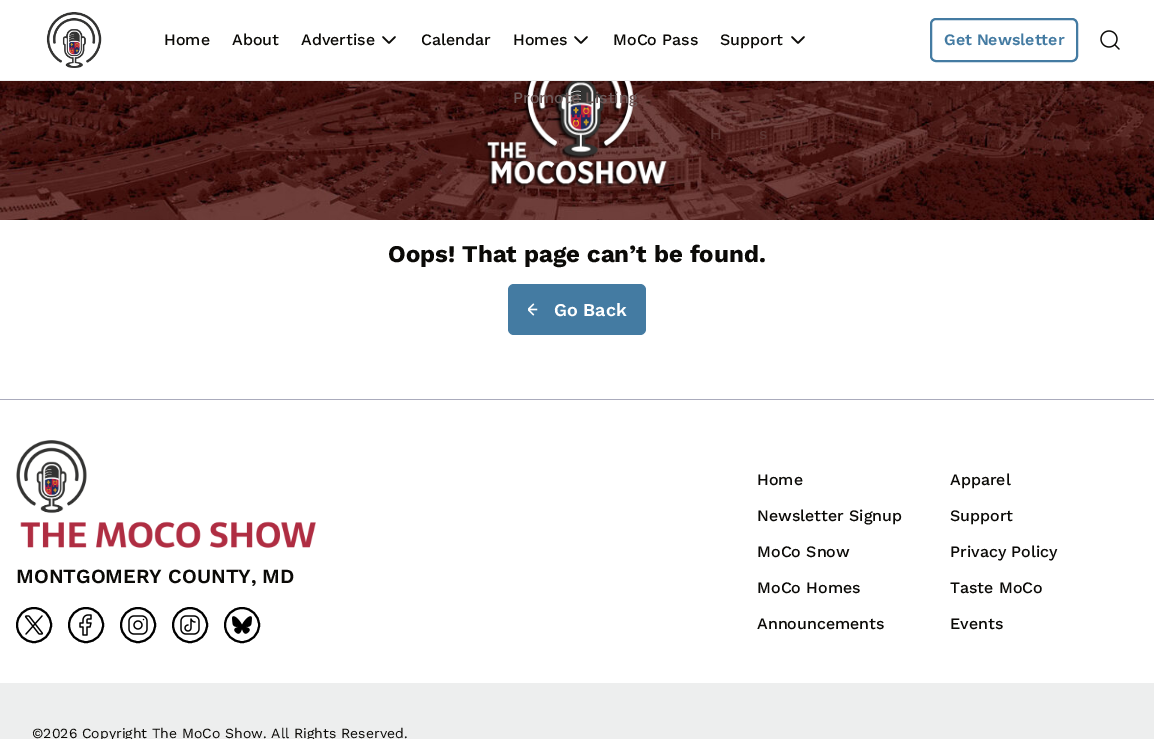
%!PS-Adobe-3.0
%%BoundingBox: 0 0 1154 739
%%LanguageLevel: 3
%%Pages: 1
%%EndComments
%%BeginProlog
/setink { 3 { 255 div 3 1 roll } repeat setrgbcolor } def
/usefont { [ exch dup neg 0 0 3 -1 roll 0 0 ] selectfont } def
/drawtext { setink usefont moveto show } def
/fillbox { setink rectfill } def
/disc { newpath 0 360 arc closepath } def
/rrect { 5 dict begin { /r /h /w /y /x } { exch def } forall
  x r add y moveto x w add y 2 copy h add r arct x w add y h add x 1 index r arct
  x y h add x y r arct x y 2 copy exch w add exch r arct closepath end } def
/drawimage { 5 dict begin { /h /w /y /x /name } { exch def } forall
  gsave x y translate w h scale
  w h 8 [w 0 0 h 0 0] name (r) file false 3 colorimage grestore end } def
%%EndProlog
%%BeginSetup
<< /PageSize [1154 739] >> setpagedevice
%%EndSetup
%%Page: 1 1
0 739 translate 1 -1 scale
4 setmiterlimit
0 0 1154 739 255 255 255 fillbox
0 80 1154 1 237 238 238 fillbox
(assets/img1.rgb) 46 12 56 56 drawimage
(Home) 164 45 /WorkSans-Medium 16 11 10 7 drawtext
(About) 232 45 /WorkSans-Medium 16 11 10 7 drawtext
(Advertise) 301 45 /WorkSans-Medium 16 11 10 7 drawtext
1.5 setlinewidth
1 setlinecap
1 setlinejoin
383 37 moveto 389 43 lineto 395 37 lineto stroke
(Calendar) 421 45 /WorkSans-Medium 16 11 10 7 drawtext
(Homes) 513 45 /WorkSans-Medium 16 11 10 7 drawtext
575 37 moveto 581 43 lineto 587 37 lineto stroke
(assets/img3.rgb) 0 81 1154 139 drawimage
(assets/img4.rgb) 484 81 183 106 drawimage
(Promote Listing) 513 103 /WorkSans-Medium 16 109 89 88 drawtext
(H) 710 139 /WorkSans-Medium 16 93 55 52 drawtext
(s) 759 139 /WorkSans-Medium 16 93 55 52 drawtext
(MoCo Pass) 613 45 /WorkSans-Medium 16 11 10 7 drawtext
(Support) 720 45 /WorkSans-Medium 16 11 10 7 drawtext
792 37 moveto 798 43 lineto 804 37 lineto stroke
68 123 162 setink
2 setlinewidth
0 setlinecap
0 setlinejoin
931 19 146 42 5 rrect stroke
(Get Newsletter) 944 45 /WorkSans-SemiBold 16 68 123 162 drawtext
(assets/img2.rgb) 1100 30 20 20 drawimage
(Oops! That page can’t be found.) 388 262 /WorkSans-Bold 24 11 10 7 drawtext
68 123 162 setink
508 284 138 51 6 rrect fill
(assets/img5.rgb) 528 303 10 13 drawimage
(Go Back) 554 316 /WorkSans-SemiBold 18 255 255 255 drawtext
0 399 1154 1 170 171 188 fillbox
(assets/img6.rgb) 16 440 300 108 drawimage
(MONTGOMERY COUNTY, MD) 16 583 /WorkSans-SemiBold 20 11 10 7 drawtext
0 0 0 setink
34 625 17 disc stroke
(assets/img7.rgb) 24 615 20 20 drawimage
86 625 17 disc stroke
(assets/img8.rgb) 79 614 13 22 drawimage
138 625 17 disc stroke
(assets/img9.rgb) 128 615 20 20 drawimage
190 625 17 disc stroke
(assets/img10.rgb) 180 615 20 20 drawimage
242 625 17 disc stroke
(assets/img11.rgb) 232 616 20 18 drawimage
(Home) 757 485 /WorkSans-Medium 16 11 10 7 drawtext
(Newsletter Signup) 757 521 /WorkSans-Medium 16 11 10 7 drawtext
(MoCo Snow) 757 557 /WorkSans-Medium 16 11 10 7 drawtext
(MoCo Homes) 757 593 /WorkSans-Medium 16 11 10 7 drawtext
(Announcements) 757 629 /WorkSans-Medium 16 11 10 7 drawtext
(Apparel) 950 485 /WorkSans-Medium 16 11 10 7 drawtext
(Support) 950 521 /WorkSans-Medium 16 11 10 7 drawtext
(Privacy Policy) 950 557 /WorkSans-Medium 16 11 10 7 drawtext
(Taste MoCo) 950 593 /WorkSans-Medium 16 11 10 7 drawtext
(Events) 950 629 /WorkSans-Medium 16 11 10 7 drawtext
0 683 1154 56 237 238 238 fillbox
(©2026 Copyright The MoCo Show. All Rights Reserved.) 32 738 /WorkSans-Regular 14 11 10 7 drawtext
showpage
%%EOF
